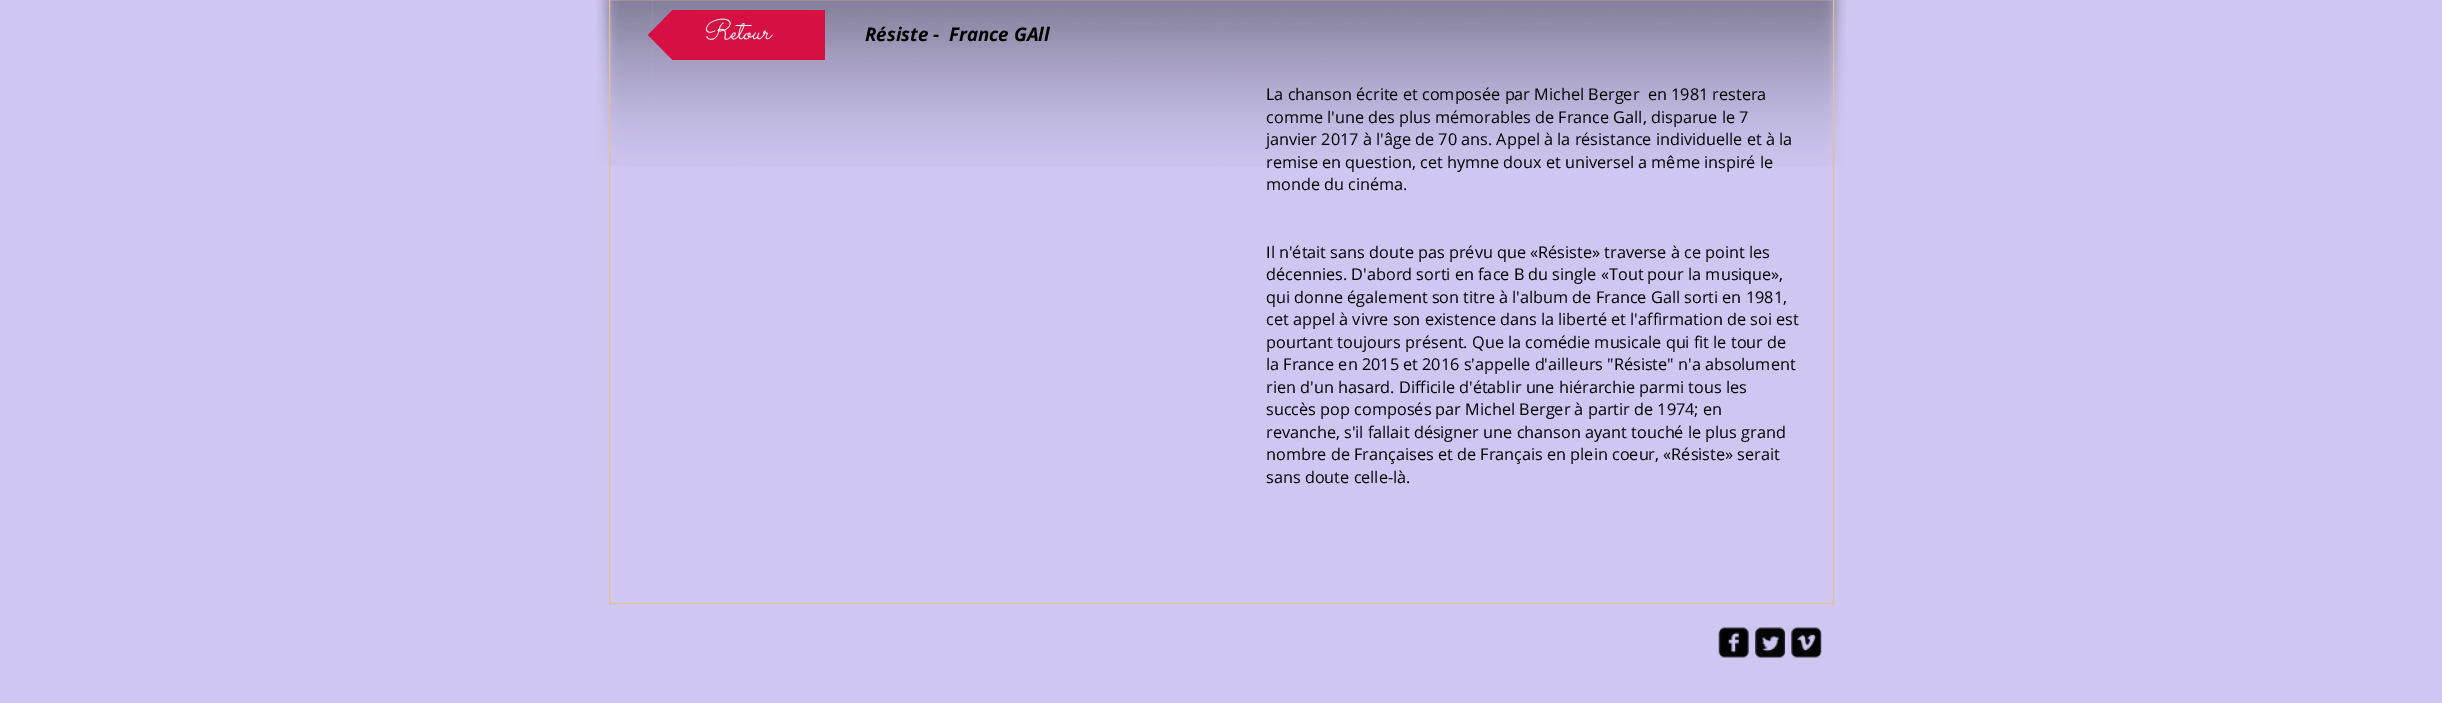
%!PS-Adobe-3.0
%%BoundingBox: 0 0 2442 703
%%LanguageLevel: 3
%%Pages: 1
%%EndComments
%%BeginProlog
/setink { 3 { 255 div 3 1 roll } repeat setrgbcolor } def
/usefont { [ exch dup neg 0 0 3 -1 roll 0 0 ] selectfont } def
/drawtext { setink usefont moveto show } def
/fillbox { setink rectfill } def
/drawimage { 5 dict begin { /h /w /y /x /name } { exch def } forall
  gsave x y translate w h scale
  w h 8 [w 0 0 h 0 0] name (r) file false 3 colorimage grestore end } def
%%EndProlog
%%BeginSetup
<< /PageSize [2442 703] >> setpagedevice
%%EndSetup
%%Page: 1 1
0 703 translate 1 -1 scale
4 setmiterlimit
0 0 2442 703 207 199 242 fillbox
(assets/img1.rgb) 596 0 57 166 drawimage
(assets/img2.rgb) 652 0 1138 166 drawimage
(assets/img3.rgb) 1790 0 56 166 drawimage
228 191 143 setink
609.5 -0.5 1224 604 rectstroke
gsave
648 10 177 50 rectclip
214 16 67 setink
710 35 moveto 648 35 lineto 710 -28 lineto closepath 648 35 moveto 710 35 lineto 710 98 lineto closepath fill
grestore
710 10 115 50 214 16 67 fillbox
(Retour) 702 39 /Sacramento-Italic 27.5 255 255 255 drawtext
(Résiste -  France GAll) 865 41 /OpenSans-BoldItalic 18.75 0 0 0 drawtext
(La chanson écrite et composée par Michel Berger  en 1981 restera) 1266 100 /OpenSans-Regular 16.25 0 0 0 drawtext
(comme l'une des plus mémorables de France Gall, disparue le 7) 1266 123 /OpenSans-Regular 16.25 0 0 0 drawtext
(janvier 2017 à l'âge de 70 ans. Appel à la résistance individuelle et à la) 1266 145 /OpenSans-Regular 16.25 0 0 0 drawtext
(remise en question, cet hymne doux et universel a même inspiré le) 1266 168 /OpenSans-Regular 16.25 0 0 0 drawtext
(monde du cinéma.) 1266 190 /OpenSans-Regular 16.25 0 0 0 drawtext
(Il n'était sans doute pas prévu que «Résiste» traverse à ce point les) 1266 258 /OpenSans-Regular 16.25 0 0 0 drawtext
(décennies. D'abord sorti en face B du single «Tout pour la musique»,) 1266 280 /OpenSans-Regular 16.25 0 0 0 drawtext
(qui donne également son titre à l'album de France Gall sorti en 1981,) 1266 303 /OpenSans-Regular 16.25 0 0 0 drawtext
(cet appel à vivre son existence dans la liberté et l'affirmation de soi est) 1266 325 /OpenSans-Regular 16.25 0 0 0 drawtext
(pourtant toujours présent. Que la comédie musicale qui fit le tour de) 1266 348 /OpenSans-Regular 16.25 0 0 0 drawtext
(la France en 2015 et 2016 s'appelle d'ailleurs "Résiste" n'a absolument) 1266 370 /OpenSans-Regular 16.25 0 0 0 drawtext
(rien d'un hasard. Difficile d'établir une hiérarchie parmi tous les) 1266 393 /OpenSans-Regular 16.25 0 0 0 drawtext
(succès pop composés par Michel Berger à partir de 1974; en) 1266 415 /OpenSans-Regular 16.25 0 0 0 drawtext
(revanche, s'il fallait désigner une chanson ayant touché le plus grand) 1266 438 /OpenSans-Regular 16.25 0 0 0 drawtext
(nombre de Françaises et de Français en plein coeur, «Résiste» serait) 1266 460 /OpenSans-Regular 16.25 0 0 0 drawtext
(sans doute celle-là.) 1266 483 /OpenSans-Regular 16.25 0 0 0 drawtext
(assets/img4.rgb) 1718 627 31 31 drawimage
(assets/img5.rgb) 1755 627 30 31 drawimage
(assets/img6.rgb) 1791 627 31 31 drawimage
showpage
%%EOF
